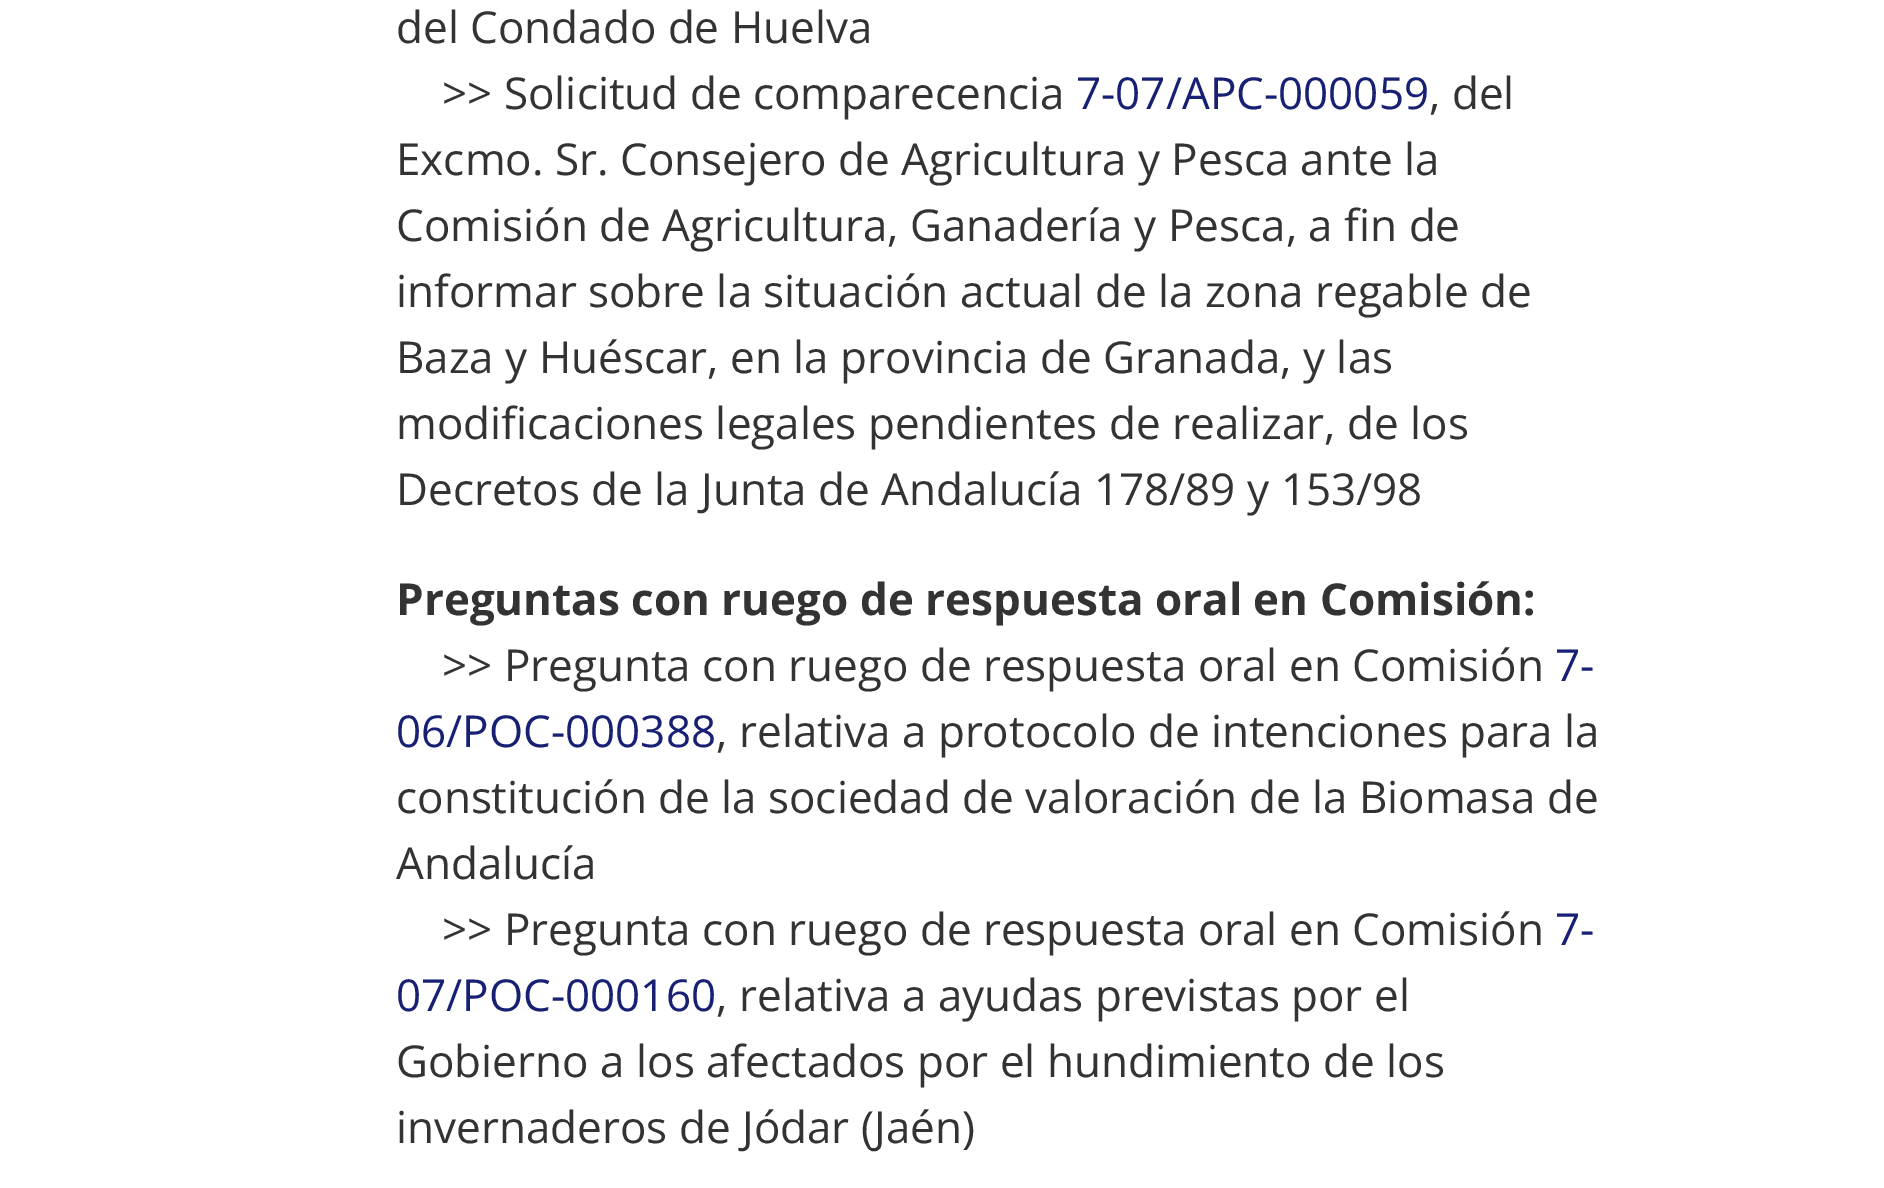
%!PS-Adobe-3.0
%%BoundingBox: 0 0 1884 1188
%%LanguageLevel: 3
%%Pages: 1
%%EndComments
%%BeginProlog
/setink { 3 { 255 div 3 1 roll } repeat setrgbcolor } def
/usefont { [ exch dup neg 0 0 3 -1 roll 0 0 ] selectfont } def
/drawtext { setink usefont moveto show } def
/fillbox { setink rectfill } def
%%EndProlog
%%BeginSetup
<< /PageSize [1884 1188] >> setpagedevice
%%EndSetup
%%Page: 1 1
0 1188 translate 1 -1 scale
4 setmiterlimit
0 0 1884 1188 255 255 255 fillbox
(del Condado de Huelva) 396 43 /OpenSans-Regular 44 51 51 51 drawtext
(>> Solicitud de comparecencia) 442 109 /OpenSans-Regular 44 51 51 51 drawtext
(7-07/APC-000059) 1076 109 /OpenSans-Regular 44 23 32 115 drawtext
(, del) 1429 109 /OpenSans-Regular 44 51 51 51 drawtext
(Excmo. Sr. Consejero de Agricultura y Pesca ante la) 396 175 /OpenSans-Regular 44 51 51 51 drawtext
(Comisión de Agricultura, Ganadería y Pesca, a fin de) 396 241 /OpenSans-Regular 44 51 51 51 drawtext
(informar sobre la situación actual de la zona regable de) 396 307 /OpenSans-Regular 44 51 51 51 drawtext
(Baza y Huéscar, en la provincia de Granada, y las) 396 373 /OpenSans-Regular 44 51 51 51 drawtext
(modificaciones legales pendientes de realizar, de los) 396 439 /OpenSans-Regular 44 51 51 51 drawtext
(Decretos de la Junta de Andalucía 178/89 y 153/98) 396 505 /OpenSans-Regular 44 51 51 51 drawtext
(Preguntas con ruego de respuesta oral en Comisión:) 396 615 /OpenSans-Bold 44 51 51 51 drawtext
(>> Pregunta con ruego de respuesta oral en Comisión) 442 681 /OpenSans-Regular 44 51 51 51 drawtext
(7-) 1555 681 /OpenSans-Regular 44 23 32 115 drawtext
(06/POC-000388) 396 747 /OpenSans-Regular 44 23 32 115 drawtext
(, relativa a protocolo de intenciones para la) 716 747 /OpenSans-Regular 44 51 51 51 drawtext
(constitución de la sociedad de valoración de la Biomasa de) 396 813 /OpenSans-Regular 44 51 51 51 drawtext
(Andalucía) 396 879 /OpenSans-Regular 44 51 51 51 drawtext
(>> Pregunta con ruego de respuesta oral en Comisión) 442 945 /OpenSans-Regular 44 51 51 51 drawtext
(7-) 1555 945 /OpenSans-Regular 44 23 32 115 drawtext
(07/POC-000160) 396 1011 /OpenSans-Regular 44 23 32 115 drawtext
(, relativa a ayudas previstas por el) 716 1011 /OpenSans-Regular 44 51 51 51 drawtext
(Gobierno a los afectados por el hundimiento de los) 396 1077 /OpenSans-Regular 44 51 51 51 drawtext
(invernaderos de Jódar \(Jaén\)) 396 1143 /OpenSans-Regular 44 51 51 51 drawtext
showpage
%%EOF
